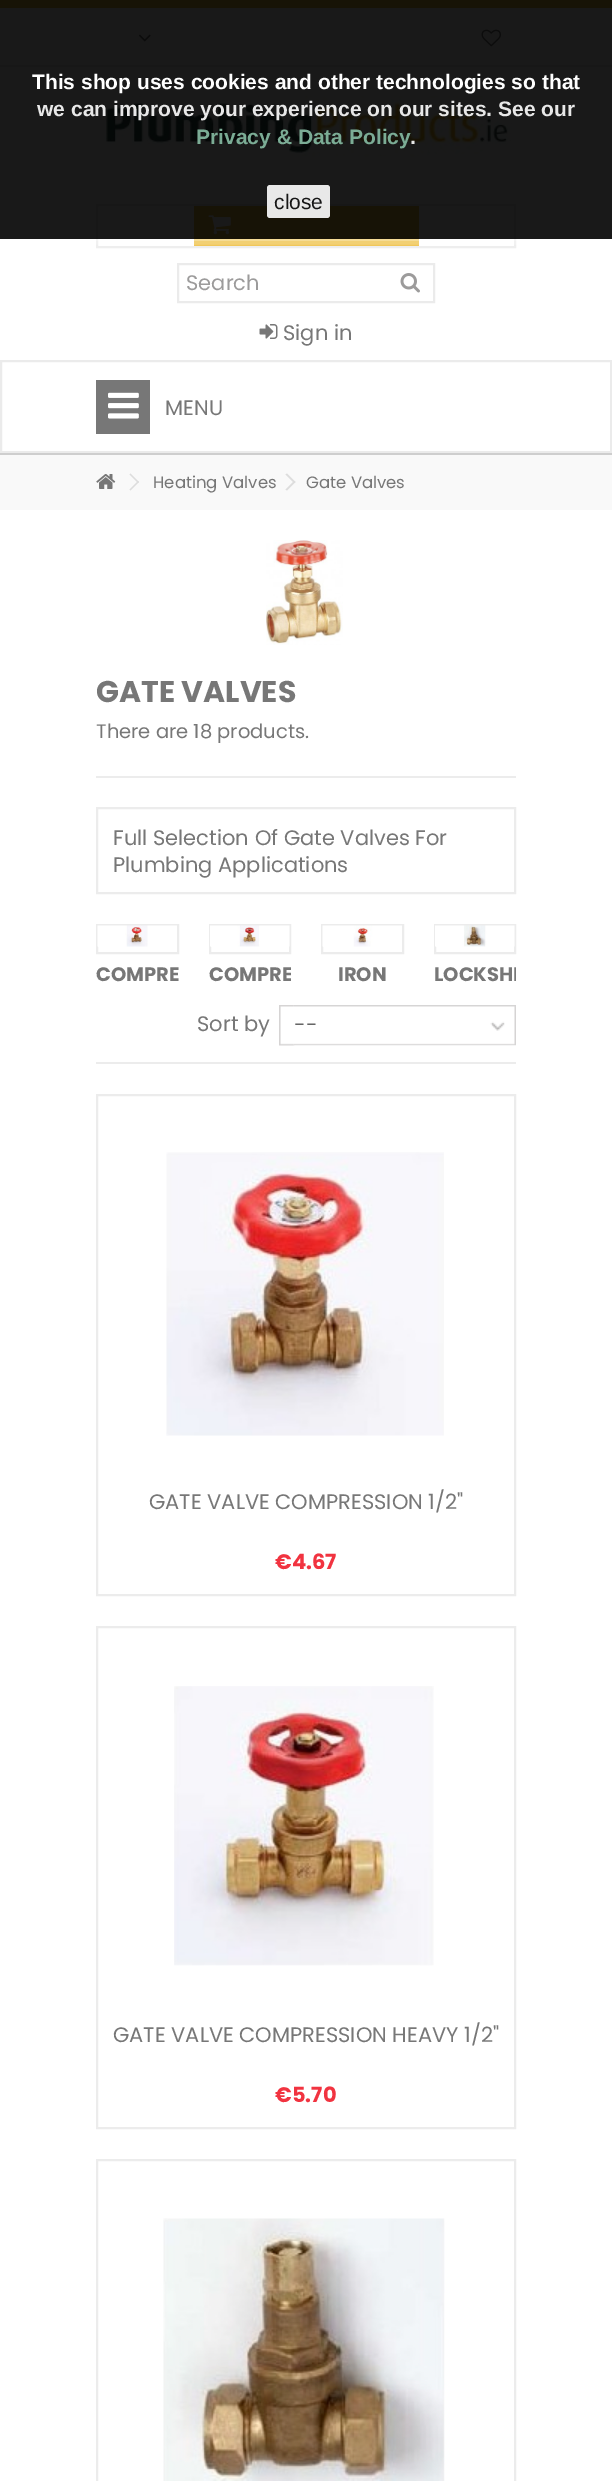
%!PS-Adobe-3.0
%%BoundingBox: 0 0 612 2481
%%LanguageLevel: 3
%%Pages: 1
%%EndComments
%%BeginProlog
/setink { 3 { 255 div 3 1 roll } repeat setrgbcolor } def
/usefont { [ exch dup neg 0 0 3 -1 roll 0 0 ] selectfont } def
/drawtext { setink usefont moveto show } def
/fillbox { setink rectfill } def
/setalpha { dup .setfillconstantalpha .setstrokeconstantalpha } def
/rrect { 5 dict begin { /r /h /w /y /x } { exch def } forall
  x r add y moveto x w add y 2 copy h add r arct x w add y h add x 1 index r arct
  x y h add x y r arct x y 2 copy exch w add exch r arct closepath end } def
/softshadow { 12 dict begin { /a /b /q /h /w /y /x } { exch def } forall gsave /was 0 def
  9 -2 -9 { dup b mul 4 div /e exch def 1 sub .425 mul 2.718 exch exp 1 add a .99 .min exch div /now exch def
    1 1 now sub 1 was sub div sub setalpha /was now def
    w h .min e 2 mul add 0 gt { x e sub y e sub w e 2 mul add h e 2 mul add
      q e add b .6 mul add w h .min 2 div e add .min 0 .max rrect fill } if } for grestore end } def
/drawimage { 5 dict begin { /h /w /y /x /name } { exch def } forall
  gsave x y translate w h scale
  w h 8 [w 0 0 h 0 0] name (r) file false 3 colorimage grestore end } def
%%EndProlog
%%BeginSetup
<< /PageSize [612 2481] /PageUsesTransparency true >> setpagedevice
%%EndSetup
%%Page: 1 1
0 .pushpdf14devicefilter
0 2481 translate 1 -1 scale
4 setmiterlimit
0 0 612 2481 255 255 255 fillbox
0 0 612 8 238 190 64 fillbox
0 65 612 2 235 235 235 fillbox
(assets/img1.rgb) 139 34 12 8 drawimage
(assets/img2.rgb) 481 29 20 18 drawimage
(assets/img3.rgb) 104 96 409 61 drawimage
2 setlinewidth
97 205 418 42 rectstroke
194 206 225 40 238 190 64 fillbox
(assets/img4.rgb) 208 215 23 20 drawimage
gsave
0 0 moveto 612 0 lineto 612 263 lineto 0 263 lineto closepath 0 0 moveto 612 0 lineto 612 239 lineto 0 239 lineto closepath eoclip newpath
255 255 255 setink
0 0 612 239 0 7.5 0.9 softshadow
grestore
0.9 setalpha
0 0 612 239 0 0 0 fillbox
1 setalpha
(This shop uses cookies and other technologies so that) 32 89 /LiberationSans-Bold 21 255 255 255 drawtext
(we can improve your experience on our sites. See our) 37 116 /LiberationSans-Bold 21 232 232 232 drawtext
(Privacy & Data Policy) 196 144 /LiberationSans-Bold 21 123 172 149 drawtext
(.) 410 144 /LiberationSans-Bold 21 232 232 232 drawtext
0.9 setalpha
255 255 255 setink
267 185 63 33 3 rrect fill
1 setalpha
(close) 274 209 /LiberationSans-Regular 21 23 23 23 drawtext
235 235 235 setink
178 264 256 38 rectstroke
(Search) 186 290 /Poppins-Regular 21 156 155 155 drawtext
(assets/img5.rgb) 400 273 20 20 drawimage
(assets/img6.rgb) 259 324 19 15 drawimage
(Sign in) 283 340 /Poppins-Regular 21 119 119 119 drawtext
235 235 235 setink
1 361 610 91 rectstroke
96 380 54 54 119 119 119 fillbox
(assets/img7.rgb) 108 392 31 27 drawimage
(MENU) 165 415 /Poppins-Regular 21 119 119 119 drawtext
0 453 612 2 206 206 206 fillbox
0 455 612 55 249 249 249 fillbox
(assets/img8.rgb) 96 474 20 15 drawimage
221 221 221 setink
130.5 473.5 moveto 139 482 lineto 138 483 lineto 129.5 474.5 lineto closepath fill
138 481 moveto 139 482 lineto 130.5 490.5 lineto 129.5 489.5 lineto closepath fill
(Heating Valves) 153 488 /Poppins-Regular 16.5 119 119 119 drawtext
221 221 221 setink
287 473.5 moveto 295.5 482 lineto 294 483 lineto 285.5 474.5 lineto closepath fill
294 481 moveto 295.5 482 lineto 287 490.5 lineto 285.5 489.5 lineto closepath fill
(Gate Valves) 306 488 /Poppins-Regular 16.5 119 119 119 drawtext
(assets/img9.rgb) 266 540 77 105 drawimage
96 776 420 2 236 236 236 fillbox
(GATE VALVES) 96 702 /Poppins-Bold 30 119 119 119 drawtext
(There are 18 products.) 96 738 /Poppins-Regular 19.5 119 119 119 drawtext
236 236 236 setink
97 808 418 85 rectstroke
(Full Selection Of Gate Valves For) 113 845 /Poppins-Regular 21 119 119 119 drawtext
(Plumbing Applications) 113 872 /Poppins-Regular 21 119 119 119 drawtext
236 236 236 setink
97 925 81 28 rectstroke
(assets/img10.rgb) 97 925 80 22 drawimage
(COMPRE) 96 981 /Poppins-Bold 19.5 119 119 119 drawtext
236 236 236 setink
210 925 80 28 rectstroke
(assets/img11.rgb) 210 925 80 22 drawimage
gsave
209 960 82 30 rectclip
(COMPRE) 209 981 /Poppins-Bold 19.5 119 119 119 drawtext
grestore
322 925 81 28 rectstroke
(assets/img12.rgb) 322 925 80 22 drawimage
(IRON) 338 981 /Poppins-Bold 19.5 119 119 119 drawtext
236 236 236 setink
435 925 80 28 rectstroke
(assets/img13.rgb) 435 925 80 22 drawimage
gsave
434 960 82 30 rectclip
(LOCKSHI) 434 981 /Poppins-Bold 19.5 119 119 119 drawtext
grestore
96 1062 420 2 236 236 236 fillbox
(Sort by) 197 1031 /Poppins-Regular 21 119 119 119 drawtext
(assets/img14.rgb) 279 1005 16 41 drawimage
(assets/img15.rgb) 294 1005 222 41 drawimage
(--) 294 1032 /Poppins-Regular 21 102 102 102 drawtext
236 236 236 setink
97 1095 418 500 rectstroke
(assets/img16.rgb) 166 1152 278 284 drawimage
(GATE VALVE COMPRESSION 1/2") 149 1509 /Poppins-Regular 21 119 119 119 drawtext
(€4.67) 275 1569 /Poppins-Bold 21 241 51 64 drawtext
236 236 236 setink
97 1627 418 501 rectstroke
(assets/img17.rgb) 174 1686 260 280 drawimage
(GATE VALVE COMPRESSION HEAVY 1/2") 113 2042 /Poppins-Regular 21 119 119 119 drawtext
(€5.70) 275 2102 /Poppins-Bold 21 241 51 64 drawtext
236 236 236 setink
97 2160 418 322 rectstroke
(assets/img18.rgb) 163 2218 282 263 drawimage
.poppdf14devicefilter showpage
%%EOF
